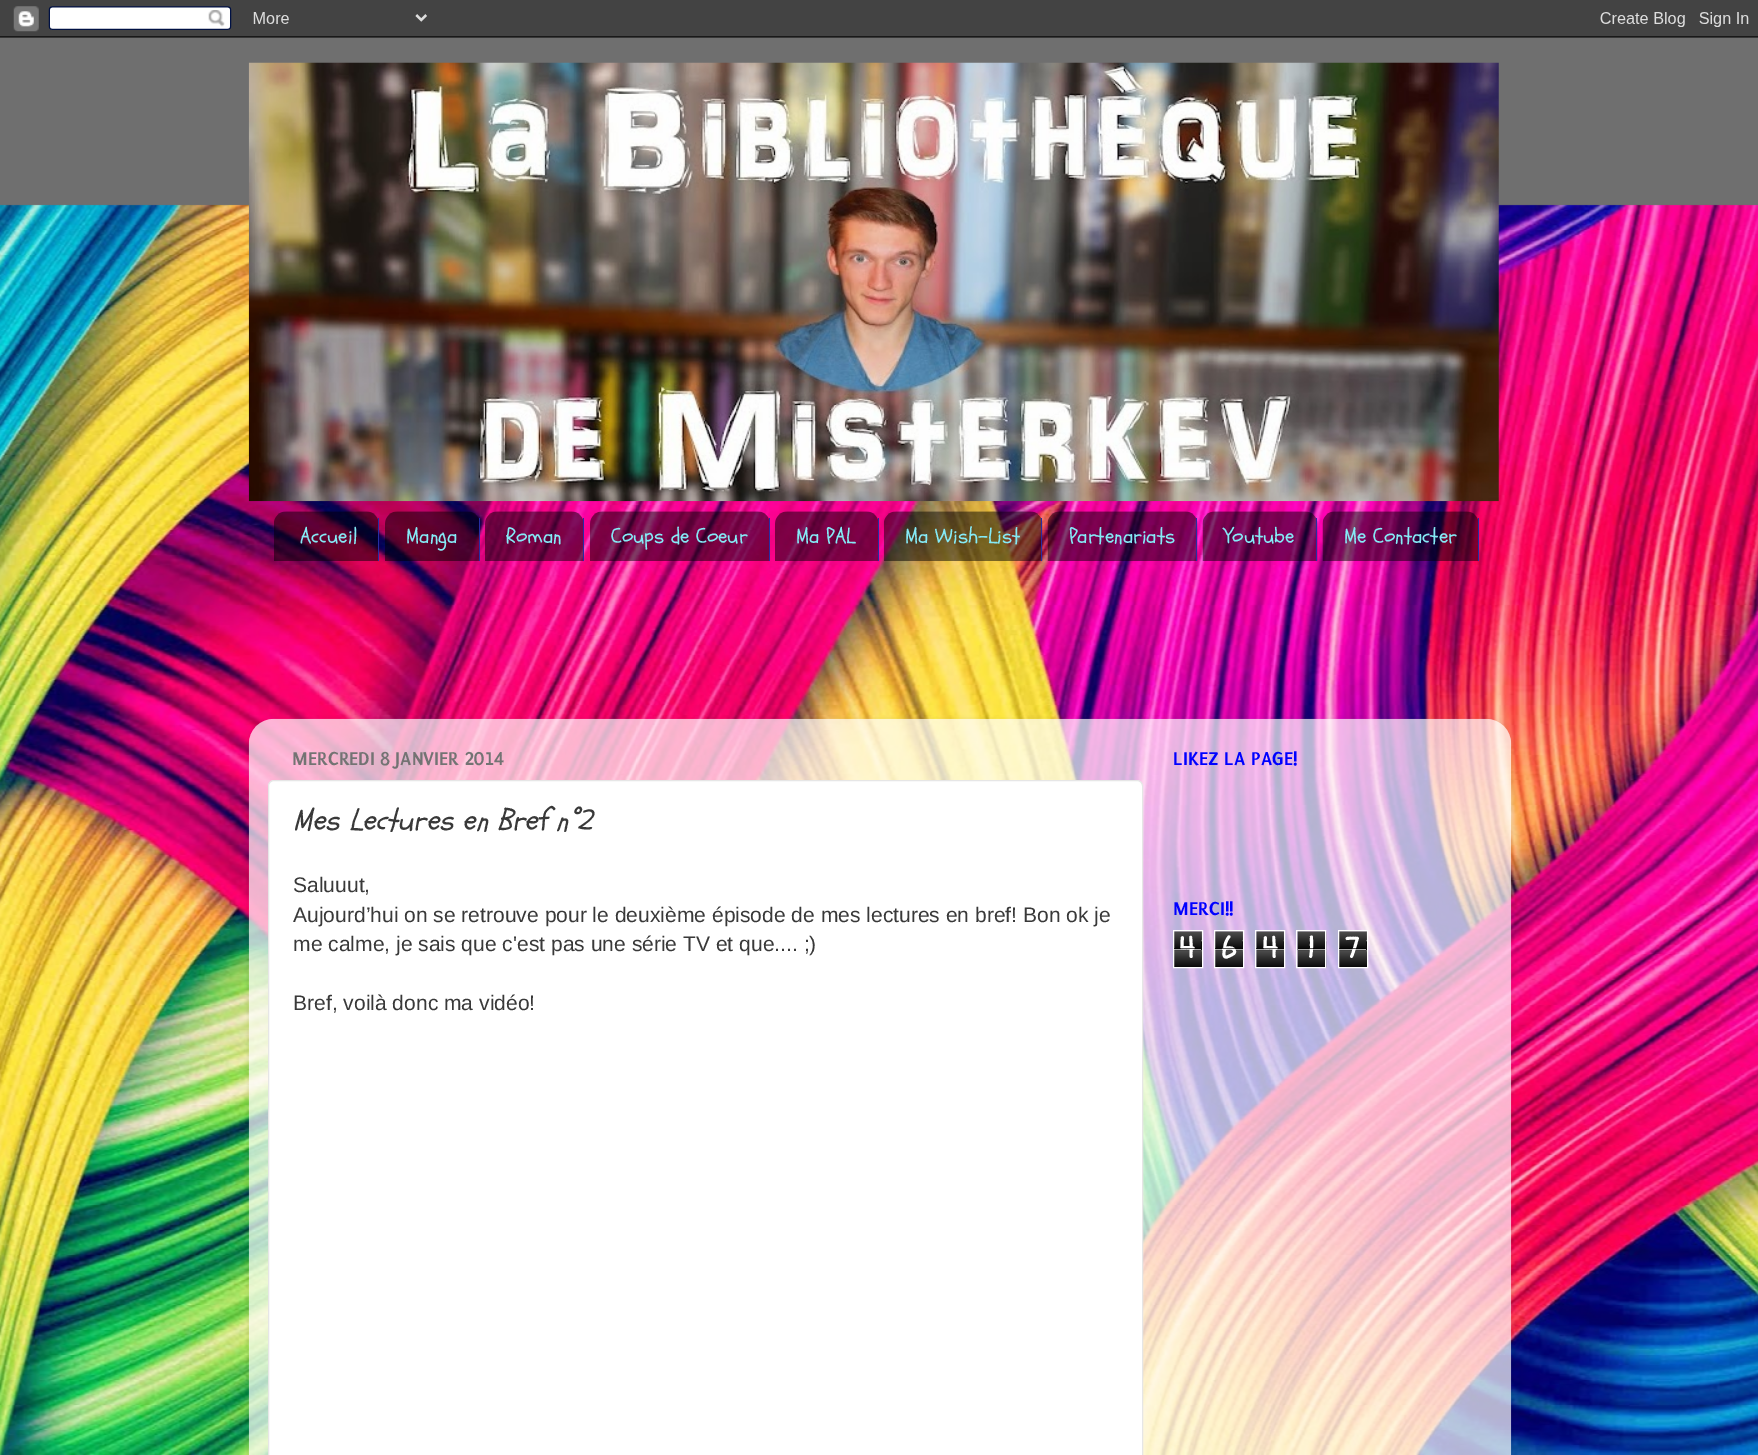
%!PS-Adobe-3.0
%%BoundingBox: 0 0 1758 1455
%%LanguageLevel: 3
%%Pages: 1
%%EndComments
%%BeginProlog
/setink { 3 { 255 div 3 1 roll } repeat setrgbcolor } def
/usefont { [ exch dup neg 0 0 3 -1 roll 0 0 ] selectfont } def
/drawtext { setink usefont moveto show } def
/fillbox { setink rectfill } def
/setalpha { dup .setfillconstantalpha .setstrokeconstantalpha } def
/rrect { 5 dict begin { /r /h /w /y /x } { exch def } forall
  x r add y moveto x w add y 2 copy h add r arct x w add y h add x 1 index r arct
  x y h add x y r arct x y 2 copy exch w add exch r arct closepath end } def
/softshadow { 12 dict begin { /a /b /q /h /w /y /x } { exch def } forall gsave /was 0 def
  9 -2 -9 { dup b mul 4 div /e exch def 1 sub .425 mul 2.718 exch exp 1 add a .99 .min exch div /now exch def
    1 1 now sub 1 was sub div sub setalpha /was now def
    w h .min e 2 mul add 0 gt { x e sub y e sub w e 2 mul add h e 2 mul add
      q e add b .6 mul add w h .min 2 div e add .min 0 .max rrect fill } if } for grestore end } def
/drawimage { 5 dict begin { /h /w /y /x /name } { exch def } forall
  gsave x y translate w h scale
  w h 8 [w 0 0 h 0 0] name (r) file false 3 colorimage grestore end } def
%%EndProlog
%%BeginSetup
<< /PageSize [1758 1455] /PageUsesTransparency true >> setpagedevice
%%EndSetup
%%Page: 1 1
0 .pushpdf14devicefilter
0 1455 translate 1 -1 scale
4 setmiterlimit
0 0 1758 1455 111 111 111 fillbox
(assets/img1.rgb) 0 204 1758 1251 drawimage
(assets/img2.rgb) 0 0 1758 38 drawimage
(assets/img3.rgb) 248 62 1251 440 drawimage
(assets/img4.rgb) 274 511 104 50 drawimage
378 518 1 43 39 45 163 fillbox
(Accueil) 300 543 /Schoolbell-Regular 21.25 133 234 246 drawtext
(assets/img5.rgb) 385 511 94 50 drawimage
479 518 1 43 39 45 163 fillbox
(Manga) 406 543 /Schoolbell-Regular 21.25 133 234 246 drawtext
(assets/img6.rgb) 485 511 98 50 drawimage
583 518 1 43 39 45 163 fillbox
(Roman) 506 543 /Schoolbell-Regular 21.25 133 234 246 drawtext
(assets/img7.rgb) 590 511 179 50 drawimage
769 518 1 43 39 45 163 fillbox
(Coups de Coeur) 611 543 /Schoolbell-Regular 21.25 133 234 246 drawtext
(assets/img8.rgb) 775 511 103 50 drawimage
878 518 1 43 39 45 163 fillbox
(Ma PAL) 796 543 /Schoolbell-Regular 21.25 133 234 246 drawtext
(assets/img9.rgb) 883 511 160 50 drawimage
1041 518 1 43 39 45 163 fillbox
(Ma Wish-List) 905 543 /Schoolbell-Regular 21.25 133 234 246 drawtext
(assets/img10.rgb) 1047 511 151 50 drawimage
1196 518 1 43 39 45 163 fillbox
(Partenariats) 1069 543 /Schoolbell-Regular 21.25 133 234 246 drawtext
(assets/img11.rgb) 1202 511 116 50 drawimage
1316 518 1 43 39 45 163 fillbox
(Youtube) 1224 543 /Schoolbell-Regular 21.25 133 234 246 drawtext
(assets/img12.rgb) 1322 511 156 50 drawimage
1478 518 1 43 39 45 163 fillbox
(Me Contacter) 1344 543 /Schoolbell-Regular 21.25 133 234 246 drawtext
gsave
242 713 moveto 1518 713 lineto 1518 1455 lineto 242 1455 lineto closepath 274 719 moveto 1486 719 lineto 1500 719 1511 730 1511 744 curveto 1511 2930 lineto 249 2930 lineto 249 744 lineto 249 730 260 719 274 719 curveto closepath eoclip newpath
0 0 0 setink
249 720 1262 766 25 2 0.15 softshadow
grestore
(assets/img13.rgb) 248 718 1264 737 drawimage
(MERCREDI 8 JANVIER 2014) 292 765 /Puritan-Bold 20 115 115 115 drawtext
255 255 255 setink
268.5 780.5 874 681 5.5 rrect gsave fill grestore
230 230 230 setink
stroke
(Mes Lectures en Bref n°2) 293 830 /Schoolbell-Italic 30 57 57 57 drawtext
(Saluuut,) 293 892 /LiberationSans-Regular 21.05 57 57 57 drawtext
(Aujourd’hui on se retrouve pour le deuxième épisode de mes lectures en bref! Bon ok je) 293 922 /LiberationSans-Regular 21.05 57 57 57 drawtext
(me calme, je sais que c'est pas une série TV et que.... ;\)) 293 951 /LiberationSans-Regular 21.05 57 57 57 drawtext
(Bref, voilà donc ma vidéo!) 293 1010 /LiberationSans-Regular 21.05 57 57 57 drawtext
(LIKEZ LA PAGE!) 1173 765 /Puritan-Bold 20 0 0 255 drawtext
(MERCI!!) 1173 915 /Puritan-Bold 20 0 0 255 drawtext
(assets/img14.rgb) 1174 931 28 36 drawimage
255 255 255 setink
1173.5 930.5 29 37 rectstroke
(4) 1179 958 /Schoolbell-Bold 30 255 255 255 drawtext
0.65 setalpha
1174 948 27 1 0 0 0 fillbox
1174 949 27 1 255 255 255 fillbox
1 setalpha
(assets/img15.rgb) 1215 931 28 36 drawimage
1214.5 930.5 29 37 rectstroke
(6) 1221 958 /Schoolbell-Bold 30 255 255 255 drawtext
0.65 setalpha
1215 948 28 1 0 0 0 fillbox
1215 949 28 1 255 255 255 fillbox
1 setalpha
(assets/img16.rgb) 1256 931 28 36 drawimage
1255.5 930.5 29 37 rectstroke
(4) 1262 958 /Schoolbell-Bold 30 255 255 255 drawtext
0.65 setalpha
1256 948 28 1 0 0 0 fillbox
1256 949 28 1 255 255 255 fillbox
1 setalpha
(assets/img17.rgb) 1297 931 30 37 drawimage
1296.5 930.5 29 37 rectstroke
(1) 1307 958 /Schoolbell-Bold 30 255 255 255 drawtext
0.65 setalpha
1298 948 27 1 0 0 0 fillbox
1298 949 27 1 255 255 255 fillbox
1 setalpha
(assets/img18.rgb) 1339 931 28 36 drawimage
1338.5 930.5 29 37 rectstroke
(7) 1345 958 /Schoolbell-Bold 30 255 255 255 drawtext
0.65 setalpha
1339 948 27 1 0 0 0 fillbox
1339 949 27 1 255 255 255 fillbox
.poppdf14devicefilter showpage
%%EOF
